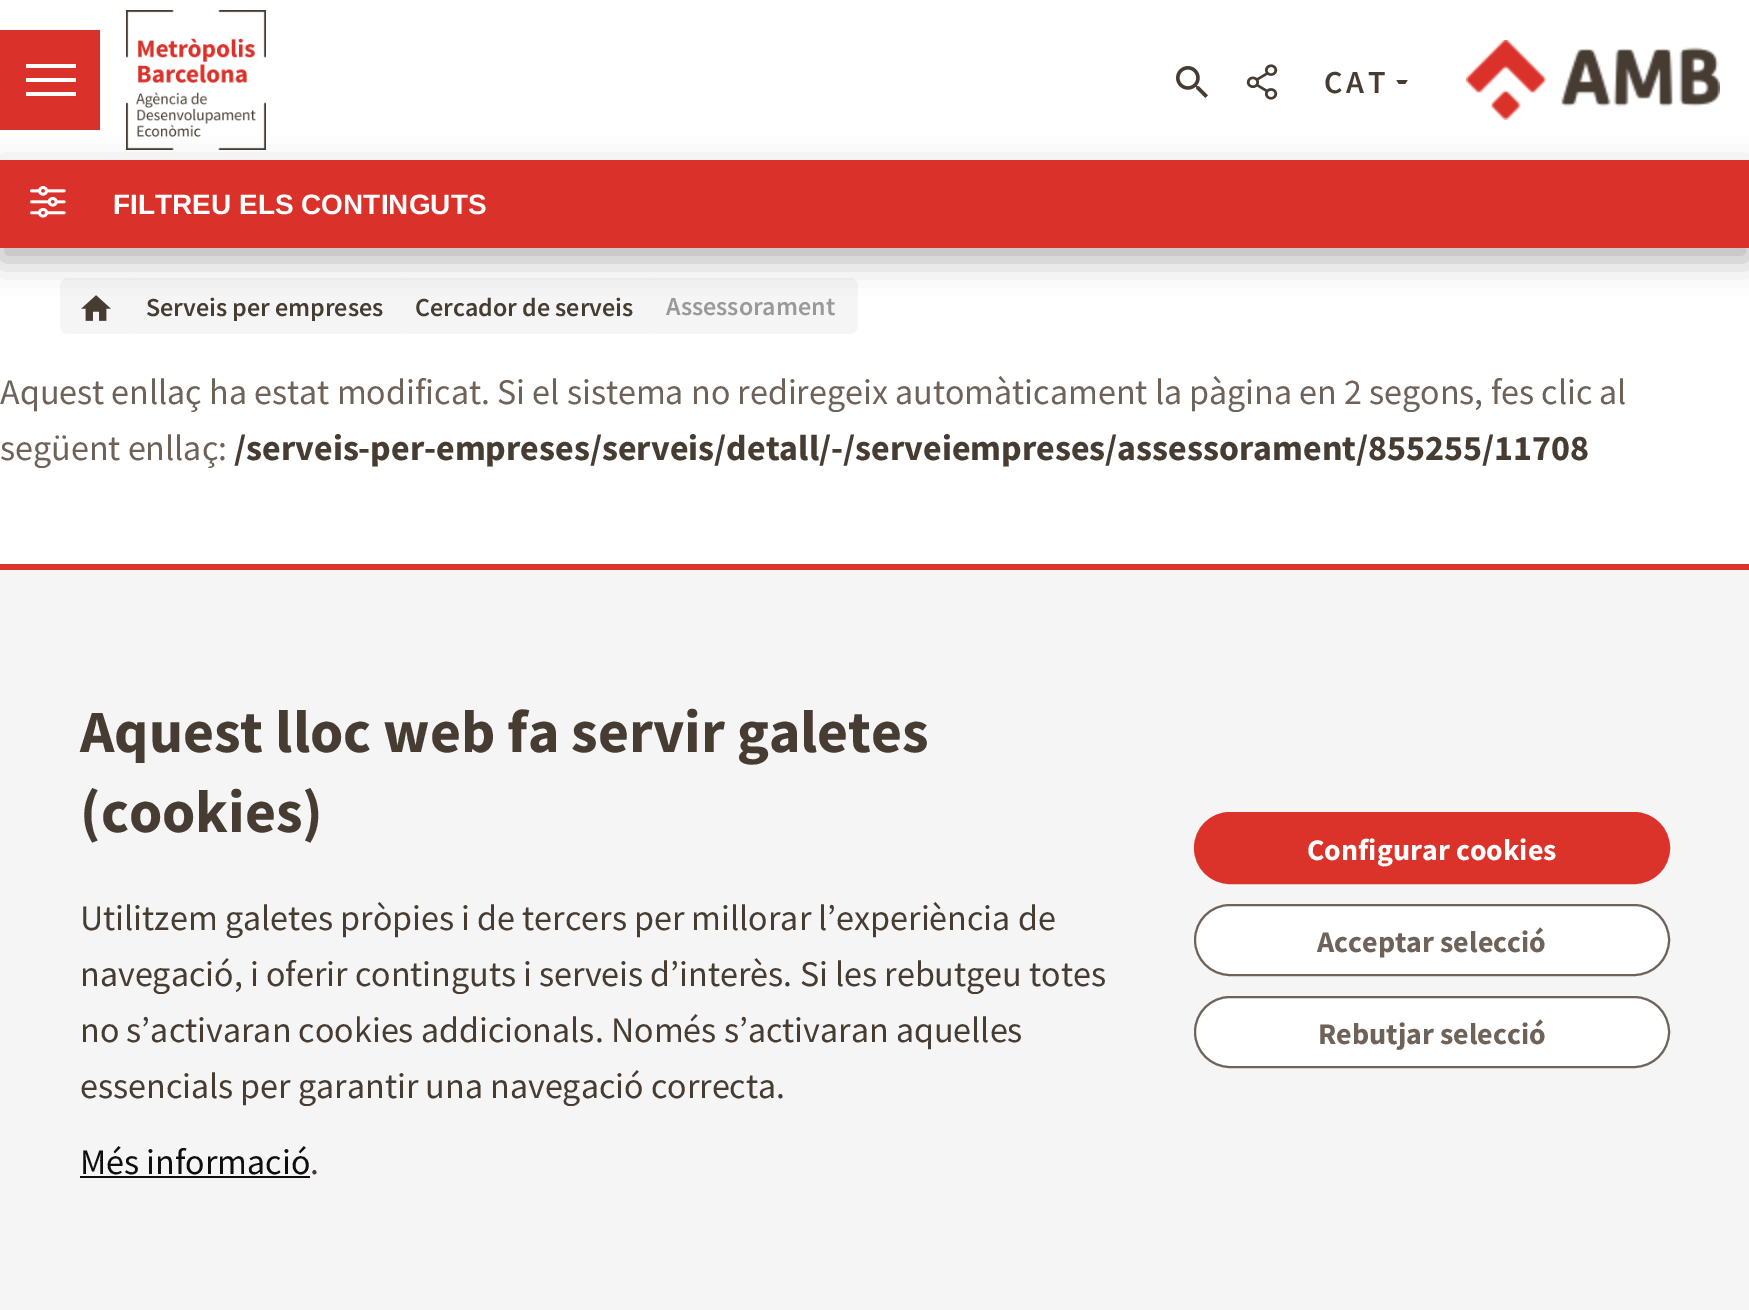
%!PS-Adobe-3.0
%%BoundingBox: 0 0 1749 1310
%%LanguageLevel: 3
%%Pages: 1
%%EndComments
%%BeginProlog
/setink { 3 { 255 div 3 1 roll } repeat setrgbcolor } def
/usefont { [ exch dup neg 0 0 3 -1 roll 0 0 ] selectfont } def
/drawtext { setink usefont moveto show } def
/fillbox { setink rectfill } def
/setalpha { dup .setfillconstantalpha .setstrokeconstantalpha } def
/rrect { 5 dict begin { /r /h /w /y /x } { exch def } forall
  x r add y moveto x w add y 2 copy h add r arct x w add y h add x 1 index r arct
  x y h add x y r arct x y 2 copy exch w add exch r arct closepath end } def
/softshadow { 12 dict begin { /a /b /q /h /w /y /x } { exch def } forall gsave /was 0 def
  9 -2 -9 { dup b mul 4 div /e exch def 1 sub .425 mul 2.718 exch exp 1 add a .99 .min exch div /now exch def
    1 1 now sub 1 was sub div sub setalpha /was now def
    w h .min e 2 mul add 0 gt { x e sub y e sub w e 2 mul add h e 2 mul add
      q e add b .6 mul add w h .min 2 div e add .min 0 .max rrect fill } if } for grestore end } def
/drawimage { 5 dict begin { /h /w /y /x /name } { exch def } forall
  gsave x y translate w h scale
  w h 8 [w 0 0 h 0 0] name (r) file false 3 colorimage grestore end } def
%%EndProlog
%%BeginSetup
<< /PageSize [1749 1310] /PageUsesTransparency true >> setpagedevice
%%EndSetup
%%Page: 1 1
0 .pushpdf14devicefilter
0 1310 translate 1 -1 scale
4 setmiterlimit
0 0 1749 1310 255 255 255 fillbox
(assets/img4.rgb) 126 10 140 140 drawimage
245 245 245 setink
60 278 78 56 8 rrect fill
(assets/img6.rgb) 81 295 30 26 drawimage
128 278 280 56 8 rrect fill
398 278 260 56 8 rrect fill
648 278 210 56 8 rrect fill
0 0 0 setink
0 172 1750 88 0 16 0.3 softshadow
0 30 100 100 218 50 42 fillbox
26 78 50 4 255 255 255 fillbox
26 64 50 4 255 255 255 fillbox
26 92 50 4 255 255 255 fillbox
(assets/img1.rgb) 1176 66 32 32 drawimage
(assets/img2.rgb) 1246 64 32 36 drawimage
/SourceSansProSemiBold-SemiBold 32 usefont
70 60 50 setink
1324 93 moveto 4 0 (CAT) ashow
1398 80 moveto 1397.5 80 1397 80.5 1396.5 80.5 curveto 1399 84 lineto 1405 84 lineto 1407.5 80.5 lineto 1407 80 lineto closepath fill
(assets/img3.rgb) 1466 40 254 80 drawimage
0 160 1749 88 218 50 42 fillbox
(assets/img5.rgb) 30 186 36 32 drawimage
(FILTREU ELS CONTINGUTS) 113 214 /LiberationSans-Bold 28 255 255 255 drawtext
(Serveis per empreses) 146 316 /SourceSansProSemiBold-SemiBold 26 70 60 50 drawtext
(Cercador de serveis) 415 316 /SourceSansProSemiBold-SemiBold 26 70 60 50 drawtext
(Assessorament) 666 315 /SourceSansProSemiBold-SemiBold 26 153 153 153 drawtext
(Aquest enllaç ha estat modificat. Si el sistema no rediregeix automàticament la pàgina en 2 segons, fes clic al) 0 404 /SourceSansPro-Regular 36 110 98 89 drawtext
(següent enllaç:) 0 460 /SourceSansPro-Regular 36 110 98 89 drawtext
(/serveis-per-empreses/serveis/detall/-/serveiempreses/assessorament/855255/11708) 234 460 /SourceSansPro-Bold 36 70 60 50 drawtext
0 570 1749 740 245 245 245 fillbox
0 564 1749 6 219 50 42 fillbox
(Aquest lloc web fa servir galetes) 80 752 /SourceSansPro-Bold 60 70 60 50 drawtext
(\(cookies\)) 80 832 /SourceSansPro-Bold 60 70 60 50 drawtext
(Utilitzem galetes pròpies i de tercers per millorar l’experiència de) 80 930 /SourceSansPro-Regular 36 70 60 50 drawtext
(navegació, i oferir continguts i serveis d’interès. Si les rebutgeu totes) 80 986 /SourceSansPro-Regular 36 70 60 50 drawtext
(no s’activaran cookies addicionals. Només s’activaran aquelles) 80 1042 /SourceSansPro-Regular 36 70 60 50 drawtext
(essencials per garantir una navegació correcta.) 80 1098 /SourceSansPro-Regular 36 70 60 50 drawtext
(Més informació) 80 1174 /SourceSansPro-Regular 36 14 14 14 drawtext
80 1176 230 2 14 14 14 fillbox
(.) 310 1174 /SourceSansPro-Regular 36 70 60 50 drawtext
219 50 42 setink
1195 813 474 70 35 rrect gsave fill grestore
2 setlinewidth
stroke
(Configurar cookies) 1307 860 /SourceSansPro-Bold 30 255 255 255 drawtext
1195 905 474 70 35 rrect gsave fill grestore
110 98 89 setink
stroke
(Acceptar selecció) 1317 952 /SourceSansPro-Bold 30 110 98 89 drawtext
255 255 255 setink
1195 997 474 70 35 rrect gsave fill grestore
110 98 89 setink
stroke
(Rebutjar selecció) 1318 1044 /SourceSansPro-Bold 30 110 98 89 drawtext
.poppdf14devicefilter showpage
%%EOF
